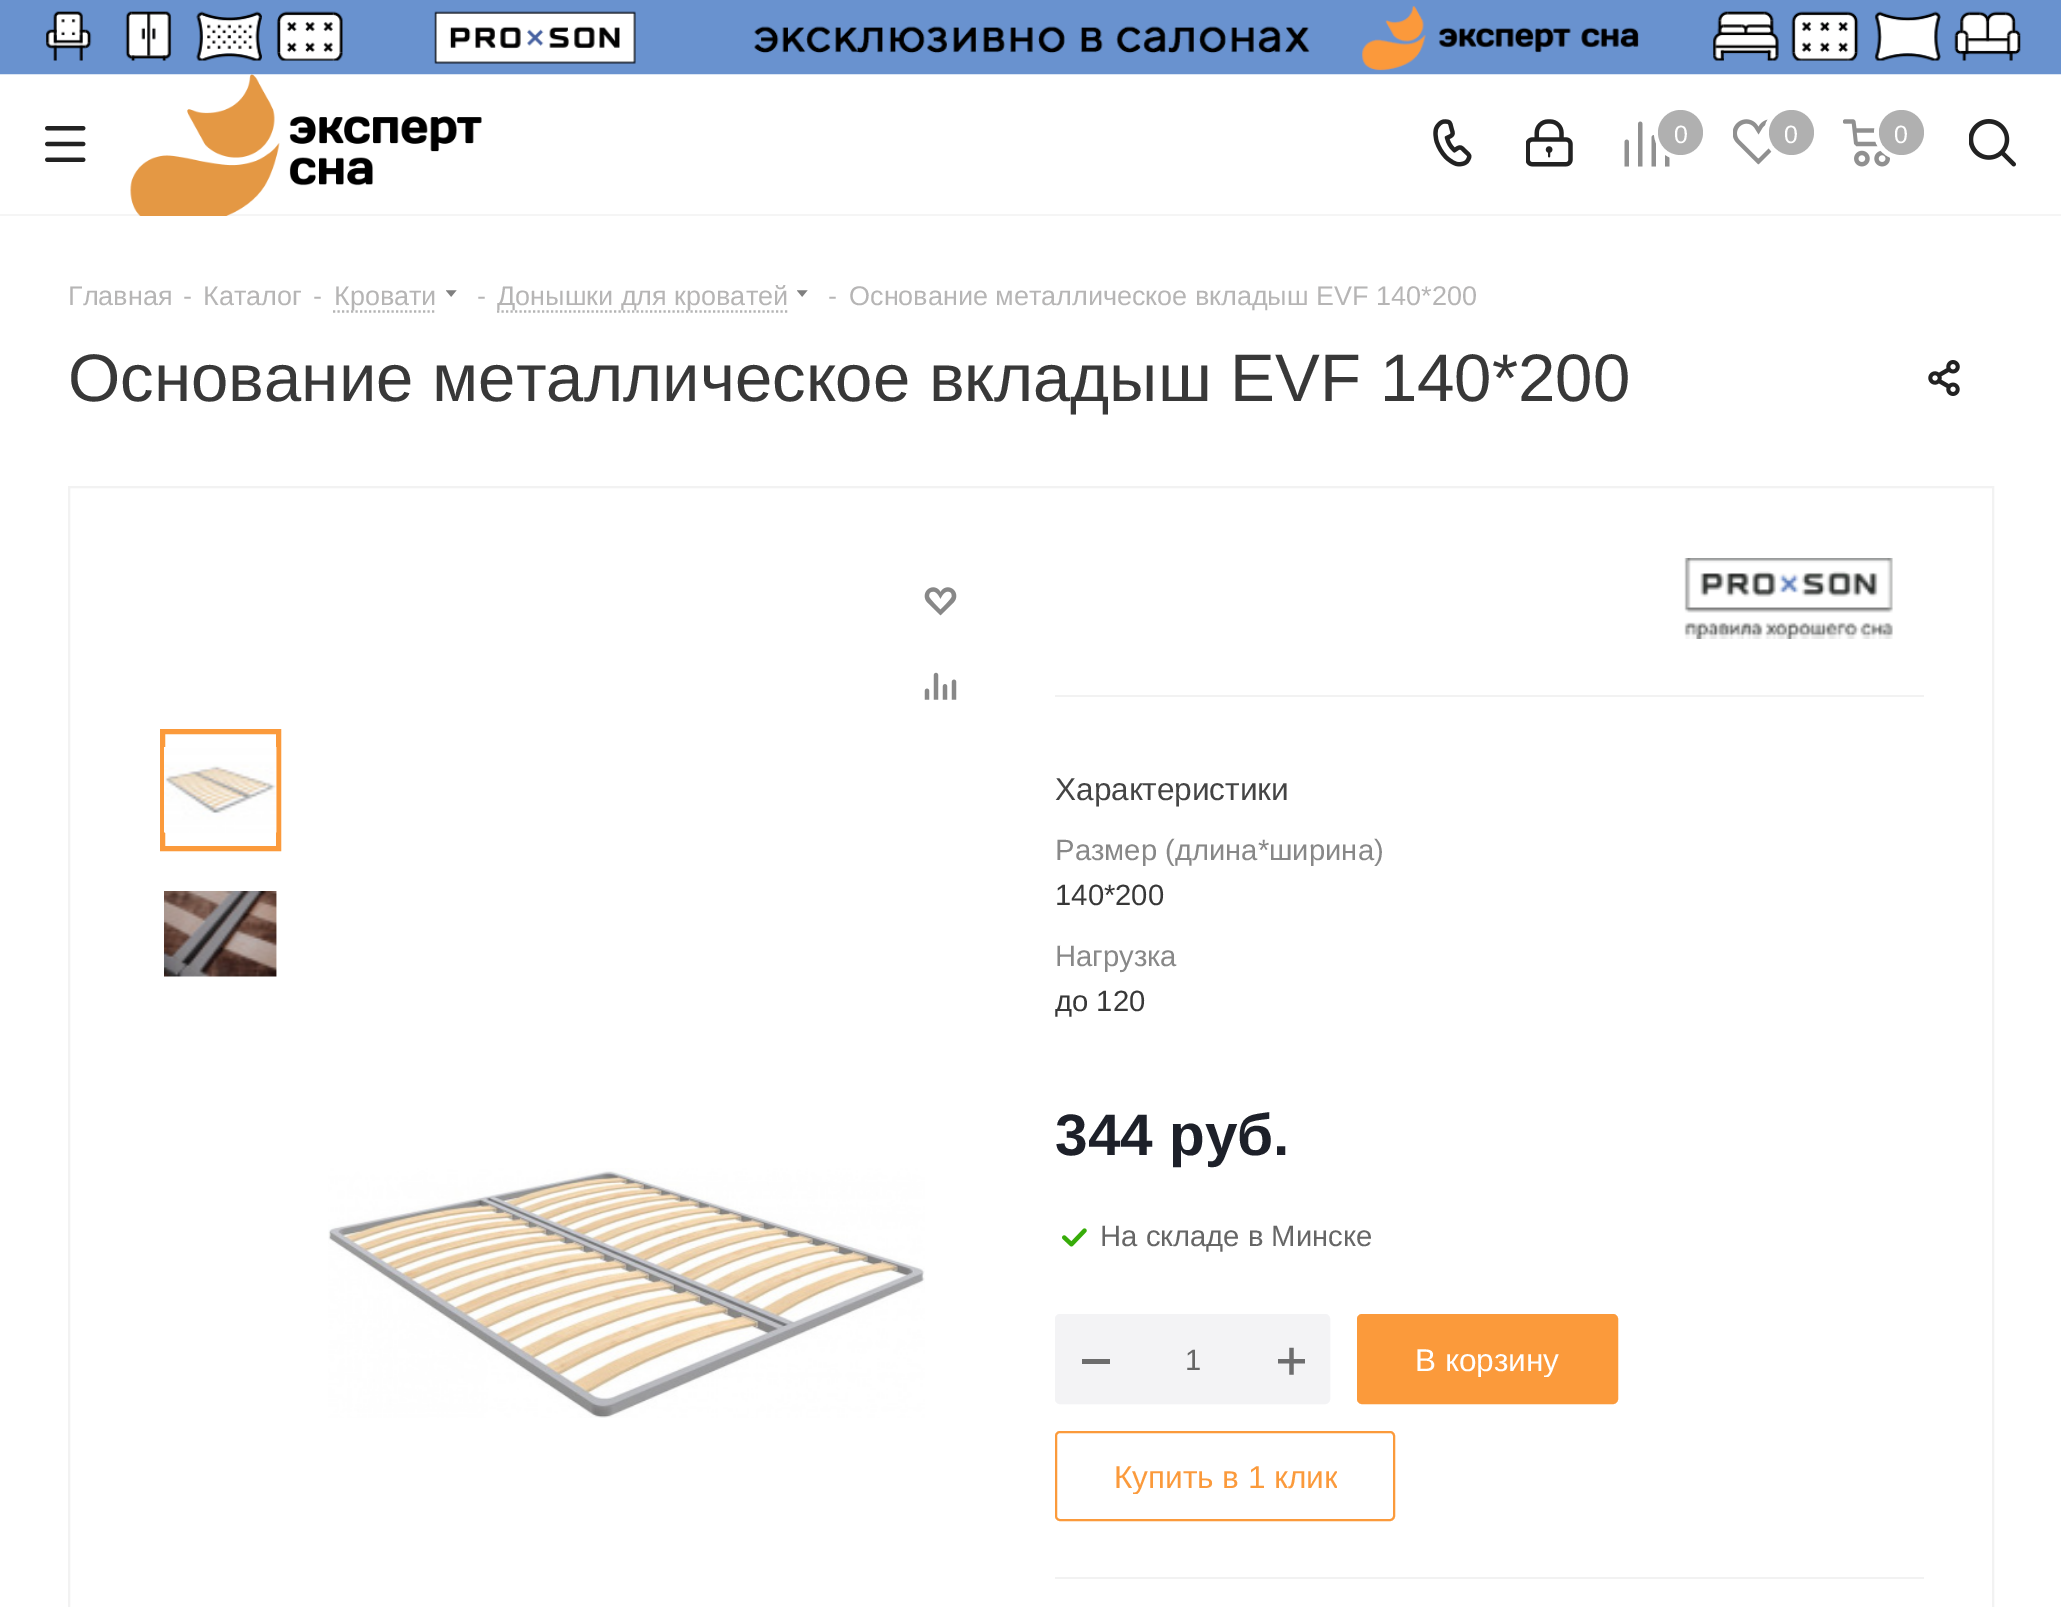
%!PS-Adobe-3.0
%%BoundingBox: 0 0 2061 1607
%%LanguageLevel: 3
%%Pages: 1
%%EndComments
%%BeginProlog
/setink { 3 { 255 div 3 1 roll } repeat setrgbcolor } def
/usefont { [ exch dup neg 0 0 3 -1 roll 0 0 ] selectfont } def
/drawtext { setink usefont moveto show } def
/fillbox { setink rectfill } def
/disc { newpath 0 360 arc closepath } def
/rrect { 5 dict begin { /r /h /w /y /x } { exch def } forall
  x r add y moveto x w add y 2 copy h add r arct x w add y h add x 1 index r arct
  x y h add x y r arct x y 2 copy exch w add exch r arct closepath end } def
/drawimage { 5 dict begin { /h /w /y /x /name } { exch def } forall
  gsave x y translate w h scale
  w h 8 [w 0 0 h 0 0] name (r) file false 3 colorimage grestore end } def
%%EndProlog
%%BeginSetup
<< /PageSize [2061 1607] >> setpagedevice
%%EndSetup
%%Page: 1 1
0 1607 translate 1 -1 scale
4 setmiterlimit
0 0 2061 1607 255 255 255 fillbox
0 214 2061 2 245 245 245 fillbox
(assets/img3.rgb) 130 74 352 142 drawimage
(assets/img1.rgb) 0 0 2061 75 drawimage
(assets/img2.rgb) 45 126 41 36 drawimage
(assets/img4.rgb) 1433 119 39 48 drawimage
(assets/img5.rgb) 1526 119 47 48 drawimage
(assets/img6.rgb) 1624 121 46 46 drawimage
255 255 255 setink
5 setlinewidth
1681 133 24.5 disc stroke
176 176 176 setink
1680.5 132.5 22.5 disc fill
(0) 1674 143 /LiberationSans-Regular 25 255 255 255 drawtext
(assets/img7.rgb) 1733 119 43 46 drawimage
1791 133 24.5 disc stroke
176 176 176 setink
1791.5 132.5 22.5 disc fill
(0) 1784 143 /LiberationSans-Regular 25 255 255 255 drawtext
(assets/img8.rgb) 1843 119 47 48 drawimage
1901 133 24.5 disc stroke
176 176 176 setink
1901.5 132.5 22.5 disc fill
(0) 1894 143 /LiberationSans-Regular 25 255 255 255 drawtext
(assets/img9.rgb) 1969 119 47 48 drawimage
(Главная) 68 305 /LiberationSans-Regular 27 182 181 181 drawtext
(-) 183 305 /LiberationSans-Regular 27 182 181 181 drawtext
(Каталог) 203 305 /LiberationSans-Regular 27 182 181 181 drawtext
(-) 313 305 /LiberationSans-Regular 27 182 181 181 drawtext
180 180 180 setink
2.2 setlinewidth
[2.25 2.25] 0 setdash
333 311.5 moveto 436.5 311.5 lineto stroke
(Кровати) 334 305 /LiberationSans-Regular 27 182 181 181 drawtext
(assets/img10.rgb) 446 290 11 7 drawimage
(-) 477 305 /LiberationSans-Regular 27 182 181 181 drawtext
180 180 180 setink
497 311.5 moveto 787.5 311.5 lineto stroke
(Донышки для кроватей) 497 305 /LiberationSans-Regular 27 182 181 181 drawtext
(assets/img10.rgb) 797 290 11 7 drawimage
(-) 828 305 /LiberationSans-Regular 27 182 181 181 drawtext
(Основание металлическое вкладыш EVF 140*200) 849 305 /LiberationSans-Regular 27 182 181 181 drawtext
(Основание металлическое вкладыш EVF 140*200) 68 401 /LiberationSans-Regular 67.2 56 56 56 drawtext
(assets/img11.rgb) 1928 360 32 36 drawimage
242 242 242 setink
2 setlinewidth
[] 0 setdash
69 487 1924 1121 rectstroke
(assets/img12.rgb) 924 587 33 29 drawimage
(assets/img13.rgb) 924 672 33 28 drawimage
251 154 59 setink
5 setlinewidth
162.5 731.5 116 117 rectstroke
(assets/img14.rgb) 164 747 113 86 drawimage
(assets/img15.rgb) 164 891 113 86 drawimage
(assets/img16.rgb) 328 1168 597 250 drawimage
1055 695 869 2 242 242 242 fillbox
(assets/img17.rgb) 1684 558 209 81 drawimage
(Характеристики) 1055 800 /LiberationSans-Regular 31.5 68 68 68 drawtext
(Размер \(длина*ширина\)) 1055 860 /LiberationSans-Regular 29.25 136 136 136 drawtext
(140*200) 1055 905 /LiberationSans-Regular 29.25 56 56 56 drawtext
(Нагрузка) 1055 966 /LiberationSans-Regular 29.25 136 136 136 drawtext
(до 120) 1055 1011 /LiberationSans-Regular 29.25 56 56 56 drawtext
(344 руб.) 1055 1155 /LiberationSans-Bold 58.5 29 32 41 drawtext
(assets/img18.rgb) 1062 1228 25 19 drawimage
(На складе в Минске) 1100 1246 /LiberationSans-Regular 29.25 102 102 102 drawtext
243 243 245 setink
1056 1315 273 88 4 rrect gsave fill grestore
2 setlinewidth
stroke
1082 1359 28 5 109 109 109 fillbox
(1) 1185 1370 /LiberationSans-Regular 29.25 102 102 102 drawtext
(assets/img19.rgb) 1278 1347 27 28 drawimage
251 154 59 setink
1358 1315 259 88 4 rrect gsave fill grestore
stroke
gsave
1415 1341 144 36 rectclip
(В корзину) 1415 1371 /LiberationSans-Regular 31.5 255 255 255 drawtext
grestore
1056 1432 338 88 4 rrect stroke
gsave
1114 1458 223 36 rectclip
(Купить в 1 клик) 1114 1488 /LiberationSans-Regular 31.5 251 154 59 drawtext
grestore
1055 1577 869 2 242 242 242 fillbox
showpage
%%EOF
